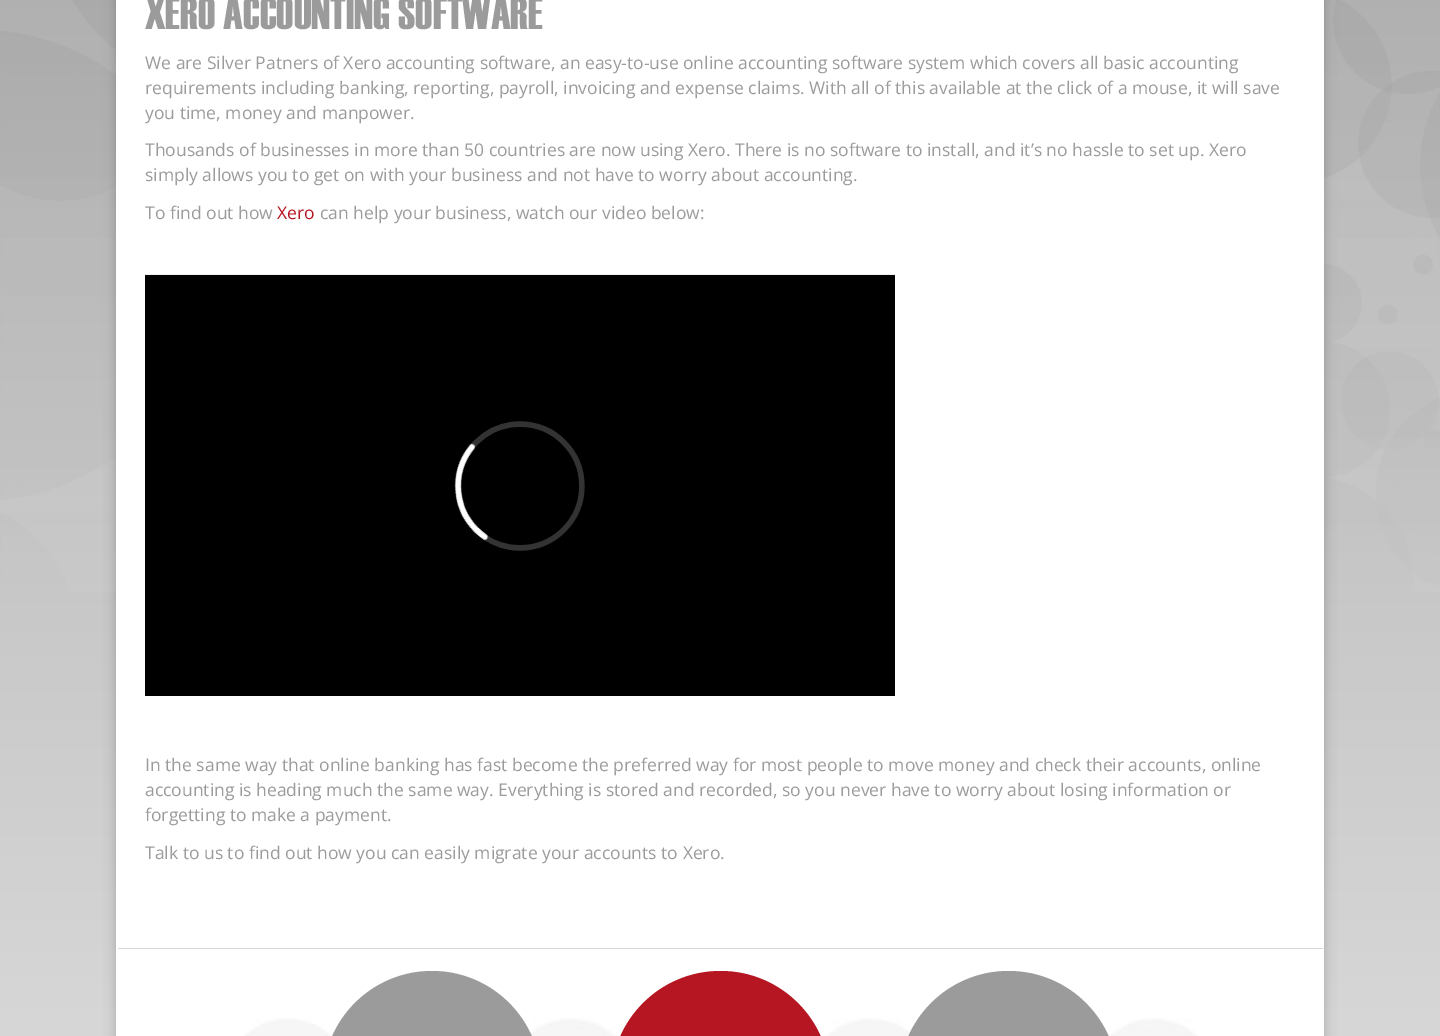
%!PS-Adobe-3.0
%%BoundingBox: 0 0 1440 1036
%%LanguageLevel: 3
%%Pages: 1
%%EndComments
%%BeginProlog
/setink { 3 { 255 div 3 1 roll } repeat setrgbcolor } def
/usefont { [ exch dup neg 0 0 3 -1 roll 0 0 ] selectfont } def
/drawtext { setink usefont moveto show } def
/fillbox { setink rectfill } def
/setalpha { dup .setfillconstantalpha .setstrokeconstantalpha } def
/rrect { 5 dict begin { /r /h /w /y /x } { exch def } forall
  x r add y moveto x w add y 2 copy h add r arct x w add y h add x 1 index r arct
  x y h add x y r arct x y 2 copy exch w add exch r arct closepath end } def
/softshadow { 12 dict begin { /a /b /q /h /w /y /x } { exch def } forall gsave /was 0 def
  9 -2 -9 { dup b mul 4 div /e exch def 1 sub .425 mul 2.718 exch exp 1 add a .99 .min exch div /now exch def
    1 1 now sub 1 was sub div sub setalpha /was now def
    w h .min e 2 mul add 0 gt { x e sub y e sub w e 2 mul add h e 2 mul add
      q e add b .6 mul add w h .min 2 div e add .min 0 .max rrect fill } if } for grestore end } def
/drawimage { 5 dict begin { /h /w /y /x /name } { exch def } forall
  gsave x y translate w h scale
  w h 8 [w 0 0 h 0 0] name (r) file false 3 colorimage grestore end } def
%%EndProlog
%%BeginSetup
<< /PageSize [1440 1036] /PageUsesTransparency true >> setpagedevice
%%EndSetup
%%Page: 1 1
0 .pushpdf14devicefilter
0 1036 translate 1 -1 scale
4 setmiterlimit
0 0 1440 1036 255 255 255 fillbox
gsave 0 0 moveto 1440 0 lineto 1440 1036 lineto 0 1036 lineto closepath clip newpath
<< /ShadingType 2 /ColorSpace /DeviceRGB /Coords [720 -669 720 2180] /Extend [true true] /Function << /FunctionType 2 /Domain [0 1] /C0 [0.612 0.612 0.612] /C1 [1 1 1] /N 1 >> >> shfill grestore
(assets/img1.rgb) 0 0 1440 592 drawimage
0 0 0 setink
116 -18 1208 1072 0 6 0.22 softshadow
116 0 1208 1036 255 255 255 fillbox
(XERO ACCOUNTING SOFTWARE) 145 29 /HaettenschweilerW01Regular-Regular 45 155 155 155 drawtext
(We are Silver Patners of Xero accounting software, an easy-to-use online accounting software system which covers all basic accounting) 145 69 /OpenSans-Regular 17.5 155 155 155 drawtext
(requirements including banking, reporting, payroll, invoicing and expense claims. With all of this available at the click of a mouse, it will save) 145 94 /OpenSans-Regular 17.5 155 155 155 drawtext
(you time, money and manpower.) 145 119 /OpenSans-Regular 17.5 155 155 155 drawtext
(Thousands of businesses in more than 50 countries are now using Xero. There is no software to install, and it’s no hassle to set up. Xero) 145 156 /OpenSans-Regular 17.5 155 155 155 drawtext
(simply allows you to get on with your business and not have to worry about accounting.) 145 181 /OpenSans-Regular 17.5 155 155 155 drawtext
(To find out how) 145 219 /OpenSans-Regular 17.5 155 155 155 drawtext
(Xero) 277 219 /OpenSans-Regular 17.5 181 22 34 drawtext
(can help your business, watch our video below:) 320 219 /OpenSans-Regular 17.5 155 155 155 drawtext
(assets/img2.rgb) 145 274 750 422 drawimage
(In the same way that online banking has fast become the preferred way for most people to move money and check their accounts, online) 145 771 /OpenSans-Regular 17.5 155 155 155 drawtext
(accounting is heading much the same way. Everything is stored and recorded, so you never have to worry about losing information or) 145 796 /OpenSans-Regular 17.5 155 155 155 drawtext
(forgetting to make a payment.) 145 821 /OpenSans-Regular 17.5 155 155 155 drawtext
(Talk to us to find out how you can easily migrate your accounts to Xero.) 145 859 /OpenSans-Regular 17.5 155 155 155 drawtext
(assets/img3.rgb) 245 1018 953 18 drawimage
118 948 1205 1 215 215 215 fillbox
155 155 155 setink
323 971 218 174 109 rrect fill
181 22 34 setink
611 971 219 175 109.5 rrect fill
155 155 155 setink
899 971 219 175 109.5 rrect fill
.poppdf14devicefilter showpage
%%EOF
